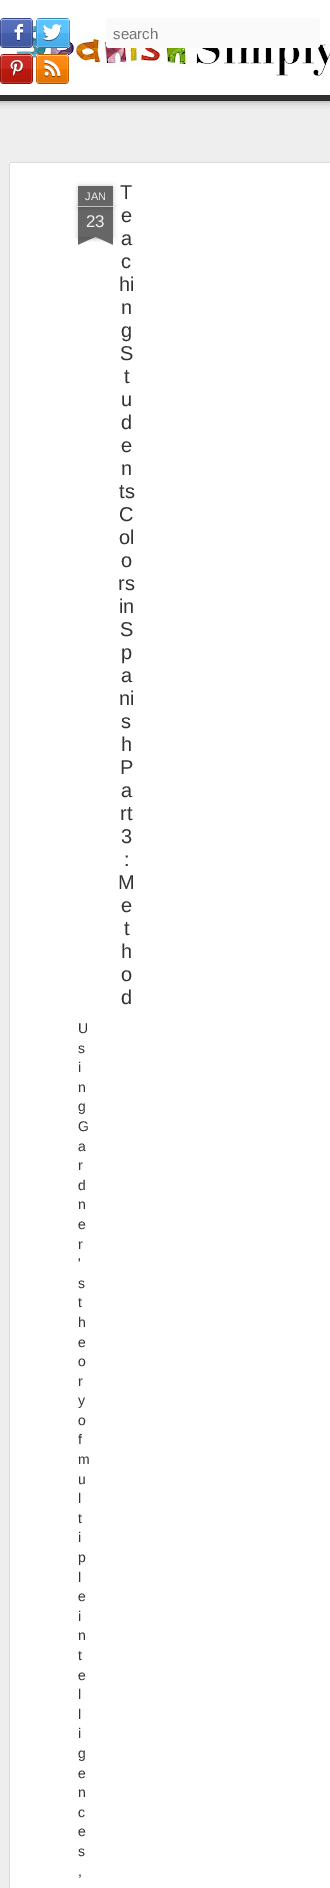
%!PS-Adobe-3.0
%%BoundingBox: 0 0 330 1888
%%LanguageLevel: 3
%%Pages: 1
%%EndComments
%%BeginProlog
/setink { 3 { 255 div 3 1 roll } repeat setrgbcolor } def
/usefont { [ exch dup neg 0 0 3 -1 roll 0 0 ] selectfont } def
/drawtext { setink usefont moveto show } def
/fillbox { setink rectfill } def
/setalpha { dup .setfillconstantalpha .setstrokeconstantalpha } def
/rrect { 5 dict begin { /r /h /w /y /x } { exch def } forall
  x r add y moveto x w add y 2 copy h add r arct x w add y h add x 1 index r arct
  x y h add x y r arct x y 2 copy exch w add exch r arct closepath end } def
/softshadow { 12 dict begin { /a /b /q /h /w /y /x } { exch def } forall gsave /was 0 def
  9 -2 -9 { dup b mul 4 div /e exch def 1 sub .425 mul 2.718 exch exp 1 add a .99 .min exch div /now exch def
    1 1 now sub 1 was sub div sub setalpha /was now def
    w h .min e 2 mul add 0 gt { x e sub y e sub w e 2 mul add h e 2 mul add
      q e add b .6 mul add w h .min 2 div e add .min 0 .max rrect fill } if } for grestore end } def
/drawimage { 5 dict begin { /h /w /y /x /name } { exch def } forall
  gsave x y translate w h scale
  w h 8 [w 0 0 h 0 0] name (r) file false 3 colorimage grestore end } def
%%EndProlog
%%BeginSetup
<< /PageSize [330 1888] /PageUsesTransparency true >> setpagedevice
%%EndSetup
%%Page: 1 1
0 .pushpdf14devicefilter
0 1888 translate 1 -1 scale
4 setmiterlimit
0 0 330 1888 51 51 51 fillbox
0 101 330 1787 238 238 238 fillbox
0 0 0 setink
0 65 330 35 0 4 0.5 softshadow
0 95 330 5 51 51 51 fillbox
0 0 0 setink
0 0 330 95 0 2.5 0.3 softshadow
0 0 330 95 255 255 255 fillbox
(assets/img5.rgb) 16 19 314 57 drawimage
(assets/img1.rgb) 0 18 33 30 drawimage
(assets/img2.rgb) 36 18 34 30 drawimage
(assets/img3.rgb) 0 54 33 30 drawimage
(assets/img4.rgb) 36 54 33 30 drawimage
250 250 250 setink
106 18 214 30 3 rrect fill
(search) 113 39 /LiberationSans-Regular 15 117 117 117 drawtext
8 161 322 1727 255 255 255 fillbox
(assets/img6.rgb) 8 161 322 1727 drawimage
0 0 0 setink
78 207 35 30 0 2.5 0.2 softshadow
78 207 35 30 102 102 102 fillbox
0 0 0 setink
78 186 35 21 1 2.5 0.2 softshadow
102 102 102 setink
79 186 moveto 112 186 lineto 112.5 186 113 186.5 113 187 curveto 113 207 lineto 78 207 lineto 78 187 lineto 78 186.5 78.5 186 79 186 curveto closepath fill
78 206 35 1 194 194 194 fillbox
(JAN) 85 200 /LiberationSans-Regular 11 238 238 238 drawtext
(23) 86 227 /LiberationSans-Regular 17 238 238 238 drawtext
gsave
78 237 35 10 rectclip
0 0 0 setink
69 227 50 10 0 2.5 0.2 softshadow
grestore
gsave
78 237 35 10 rectclip
102 102 102 setink
69 238 moveto 115 217 lineto 119 226 lineto 73 247 lineto closepath fill
grestore
gsave
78 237 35 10 rectclip
0 0 0 setink
72 227 50 10 0 2.5 0.2 softshadow
grestore
gsave
78 237 35 10 rectclip
102 102 102 setink
76 217 moveto 122 238 lineto 118 247 lineto 72 226 lineto closepath fill
grestore
(T) 120 199 /LiberationSans-Regular 20 51 51 51 drawtext
(e) 121 222 /LiberationSans-Regular 20 51 51 51 drawtext
(a) 121 245 /LiberationSans-Regular 20 51 51 51 drawtext
(c) 121 268 /LiberationSans-Regular 20 51 51 51 drawtext
(hi) 119 291 /LiberationSans-Regular 20 51 51 51 drawtext
(n) 121 314 /LiberationSans-Regular 20 51 51 51 drawtext
(g) 121 337 /LiberationSans-Regular 20 51 51 51 drawtext
(S) 120 360 /LiberationSans-Regular 20 51 51 51 drawtext
(t) 124 383 /LiberationSans-Regular 20 51 51 51 drawtext
(u) 121 406 /LiberationSans-Regular 20 51 51 51 drawtext
(d) 121 429 /LiberationSans-Regular 20 51 51 51 drawtext
(e) 121 452 /LiberationSans-Regular 20 51 51 51 drawtext
(n) 121 475 /LiberationSans-Regular 20 51 51 51 drawtext
(ts) 119 498 /LiberationSans-Regular 20 51 51 51 drawtext
(C) 119 521 /LiberationSans-Regular 20 51 51 51 drawtext
(ol) 119 544 /LiberationSans-Regular 20 51 51 51 drawtext
(o) 121 567 /LiberationSans-Regular 20 51 51 51 drawtext
(rs) 118 590 /LiberationSans-Regular 20 51 51 51 drawtext
(in) 119 613 /LiberationSans-Regular 20 51 51 51 drawtext
(S) 120 636 /LiberationSans-Regular 20 51 51 51 drawtext
(p) 121 659 /LiberationSans-Regular 20 51 51 51 drawtext
(a) 121 682 /LiberationSans-Regular 20 51 51 51 drawtext
(ni) 119 705 /LiberationSans-Regular 20 51 51 51 drawtext
(s) 121 728 /LiberationSans-Regular 20 51 51 51 drawtext
(h) 121 751 /LiberationSans-Regular 20 51 51 51 drawtext
(P) 120 774 /LiberationSans-Regular 20 51 51 51 drawtext
(a) 121 797 /LiberationSans-Regular 20 51 51 51 drawtext
(rt) 120 820 /LiberationSans-Regular 20 51 51 51 drawtext
(3) 121 843 /LiberationSans-Regular 20 51 51 51 drawtext
(:) 124 866 /LiberationSans-Regular 20 51 51 51 drawtext
(M) 118 889 /LiberationSans-Regular 20 51 51 51 drawtext
(e) 121 912 /LiberationSans-Regular 20 51 51 51 drawtext
(t) 124 935 /LiberationSans-Regular 20 51 51 51 drawtext
(h) 121 958 /LiberationSans-Regular 20 51 51 51 drawtext
(o) 121 981 /LiberationSans-Regular 20 51 51 51 drawtext
(d) 121 1004 /LiberationSans-Regular 20 51 51 51 drawtext
(U) 78 1033 /LiberationSans-Regular 14 51 51 51 drawtext
(s) 78 1053 /LiberationSans-Regular 14 51 51 51 drawtext
(i) 78 1072 /LiberationSans-Regular 14 51 51 51 drawtext
(n) 78 1092 /LiberationSans-Regular 14 51 51 51 drawtext
(g) 78 1111 /LiberationSans-Regular 14 51 51 51 drawtext
(G) 78 1131 /LiberationSans-Regular 14 51 51 51 drawtext
(a) 78 1151 /LiberationSans-Regular 14 51 51 51 drawtext
(r) 78 1170 /LiberationSans-Regular 14 51 51 51 drawtext
(d) 78 1190 /LiberationSans-Regular 14 51 51 51 drawtext
(n) 78 1209 /LiberationSans-Regular 14 51 51 51 drawtext
(e) 78 1229 /LiberationSans-Regular 14 51 51 51 drawtext
(r) 78 1249 /LiberationSans-Regular 14 51 51 51 drawtext
(') 78 1268 /LiberationSans-Regular 14 51 51 51 drawtext
(s) 78 1288 /LiberationSans-Regular 14 51 51 51 drawtext
(t) 78 1307 /LiberationSans-Regular 14 51 51 51 drawtext
(h) 78 1327 /LiberationSans-Regular 14 51 51 51 drawtext
(e) 78 1347 /LiberationSans-Regular 14 51 51 51 drawtext
(o) 78 1366 /LiberationSans-Regular 14 51 51 51 drawtext
(r) 78 1386 /LiberationSans-Regular 14 51 51 51 drawtext
(y) 78 1405 /LiberationSans-Regular 14 51 51 51 drawtext
(o) 78 1425 /LiberationSans-Regular 14 51 51 51 drawtext
(f) 78 1444 /LiberationSans-Regular 14 51 51 51 drawtext
(m) 78 1464 /LiberationSans-Regular 14 51 51 51 drawtext
(u) 78 1484 /LiberationSans-Regular 14 51 51 51 drawtext
(l) 78 1503 /LiberationSans-Regular 14 51 51 51 drawtext
(t) 78 1523 /LiberationSans-Regular 14 51 51 51 drawtext
(i) 78 1542 /LiberationSans-Regular 14 51 51 51 drawtext
(p) 78 1562 /LiberationSans-Regular 14 51 51 51 drawtext
(l) 78 1582 /LiberationSans-Regular 14 51 51 51 drawtext
(e) 78 1601 /LiberationSans-Regular 14 51 51 51 drawtext
(i) 78 1621 /LiberationSans-Regular 14 51 51 51 drawtext
(n) 78 1640 /LiberationSans-Regular 14 51 51 51 drawtext
(t) 78 1660 /LiberationSans-Regular 14 51 51 51 drawtext
(e) 78 1680 /LiberationSans-Regular 14 51 51 51 drawtext
(l) 78 1699 /LiberationSans-Regular 14 51 51 51 drawtext
(l) 78 1719 /LiberationSans-Regular 14 51 51 51 drawtext
(i) 78 1738 /LiberationSans-Regular 14 51 51 51 drawtext
(g) 78 1758 /LiberationSans-Regular 14 51 51 51 drawtext
(e) 78 1778 /LiberationSans-Regular 14 51 51 51 drawtext
(n) 78 1797 /LiberationSans-Regular 14 51 51 51 drawtext
(c) 78 1817 /LiberationSans-Regular 14 51 51 51 drawtext
(e) 78 1836 /LiberationSans-Regular 14 51 51 51 drawtext
(s) 78 1856 /LiberationSans-Regular 14 51 51 51 drawtext
(,) 78 1876 /LiberationSans-Regular 14 51 51 51 drawtext
.poppdf14devicefilter showpage
%%EOF
